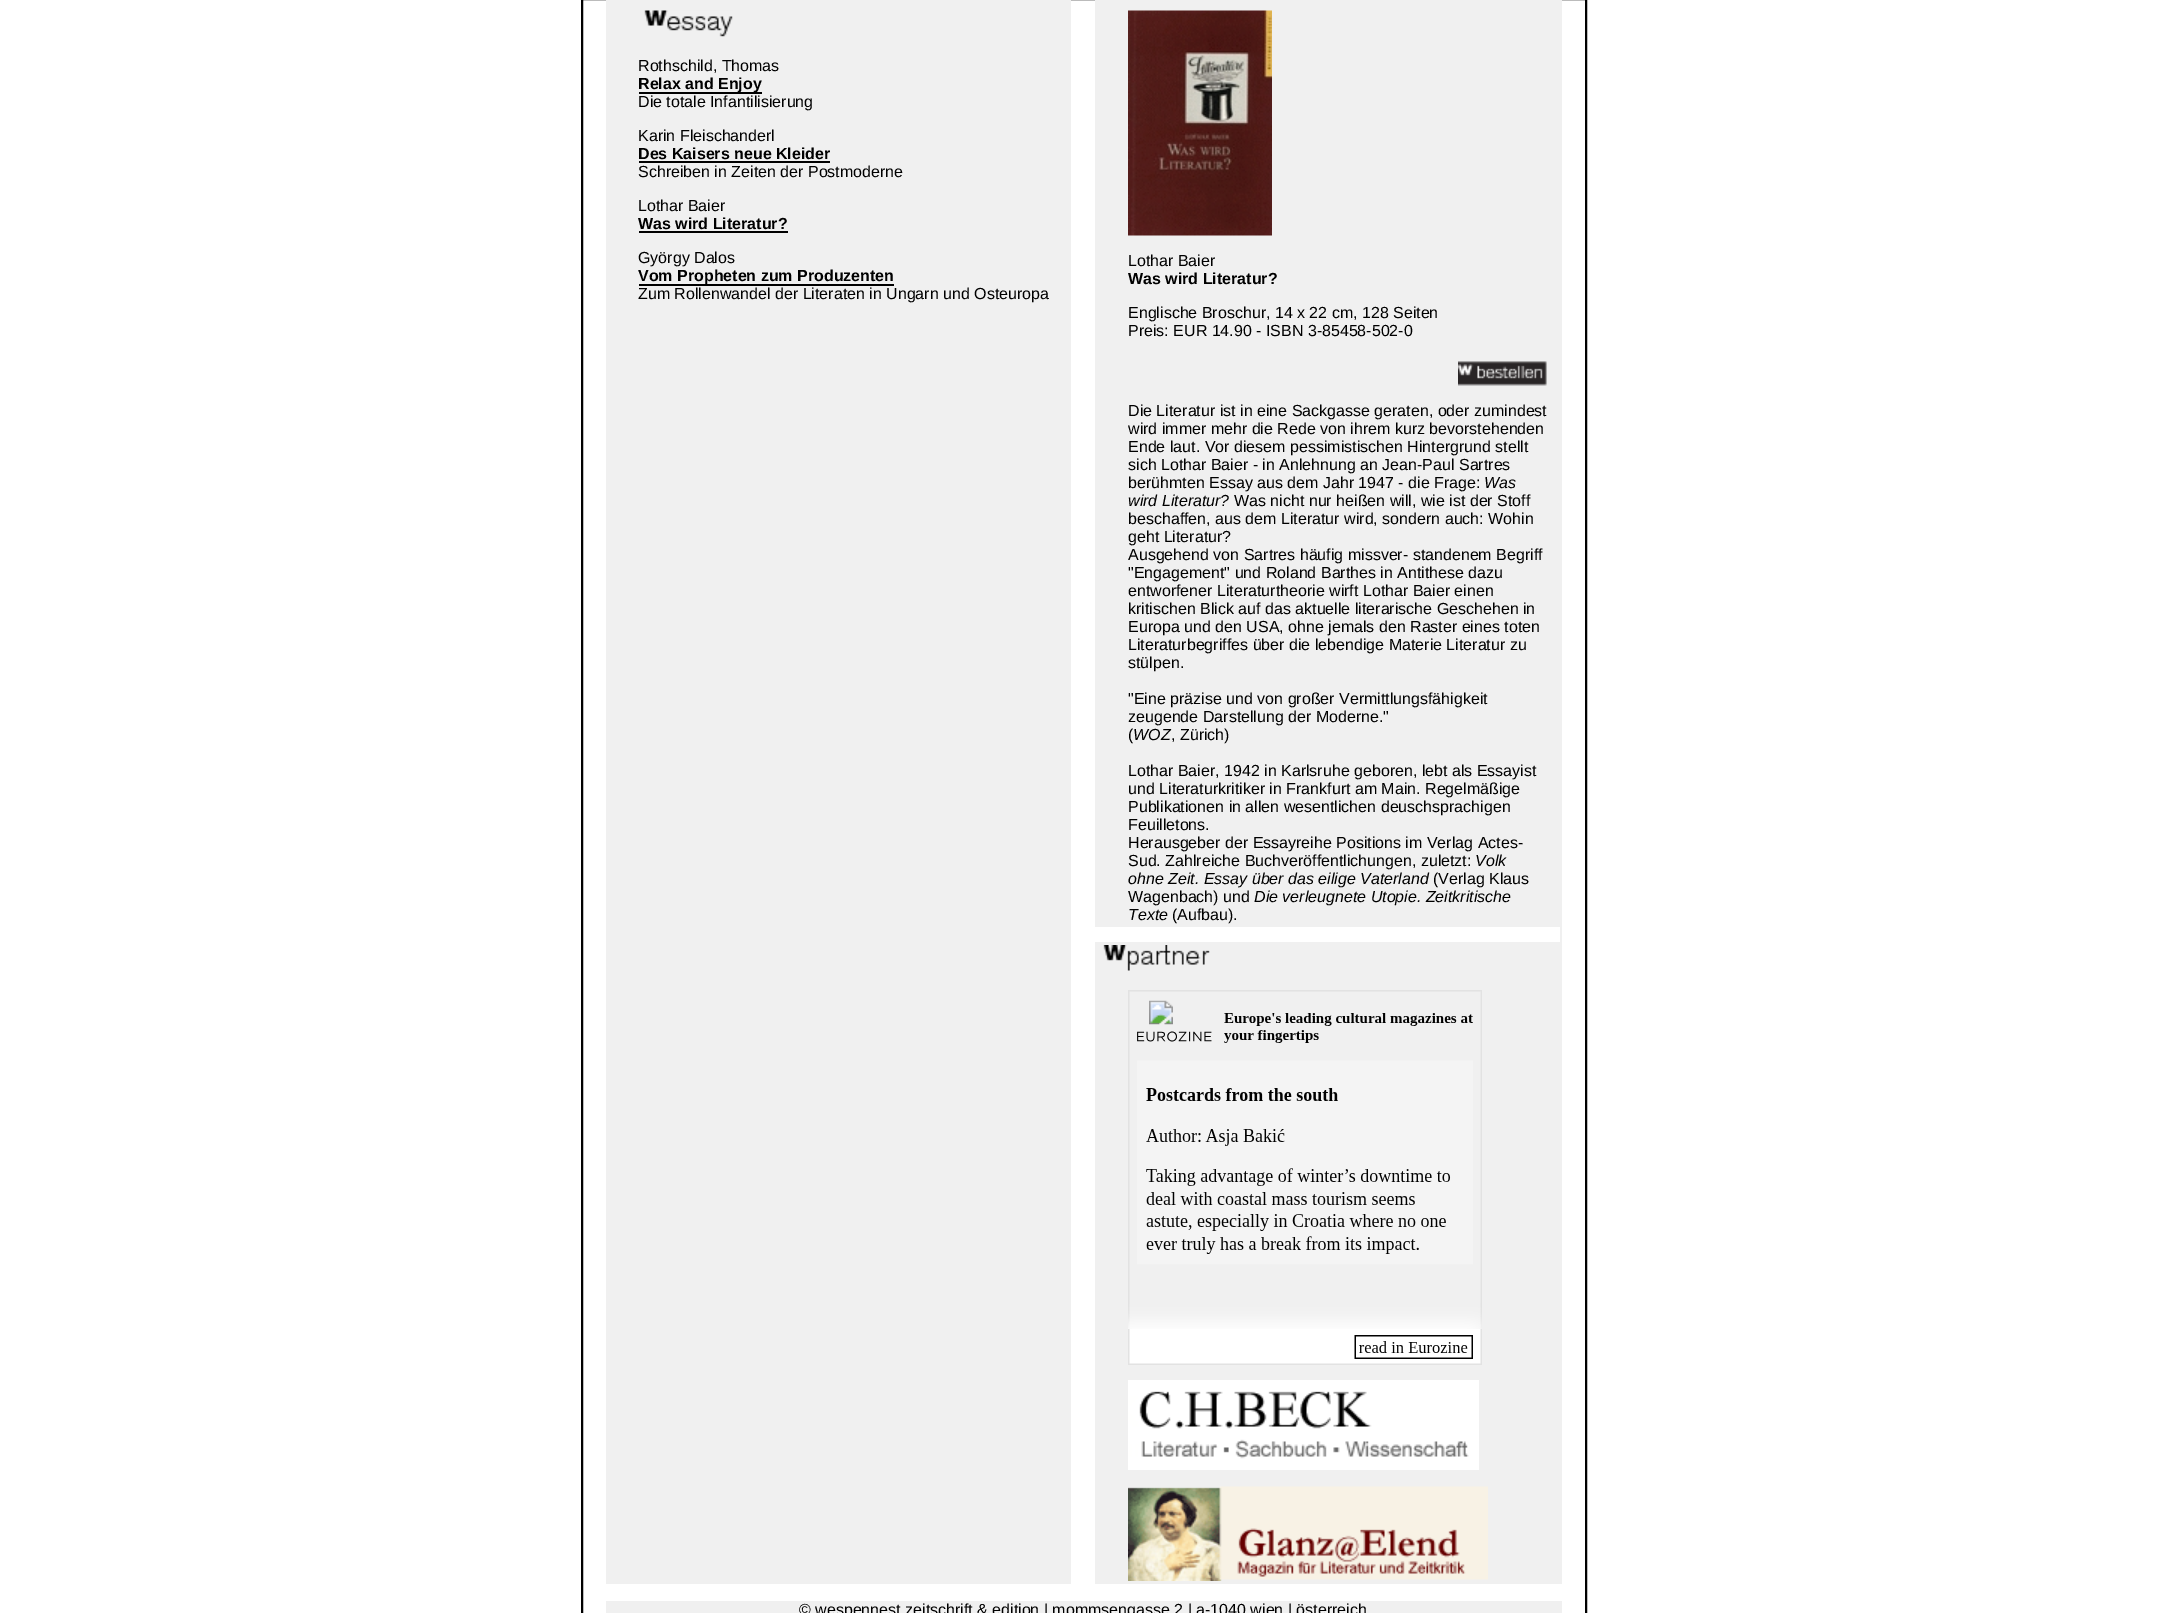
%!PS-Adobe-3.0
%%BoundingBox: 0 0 2166 1613
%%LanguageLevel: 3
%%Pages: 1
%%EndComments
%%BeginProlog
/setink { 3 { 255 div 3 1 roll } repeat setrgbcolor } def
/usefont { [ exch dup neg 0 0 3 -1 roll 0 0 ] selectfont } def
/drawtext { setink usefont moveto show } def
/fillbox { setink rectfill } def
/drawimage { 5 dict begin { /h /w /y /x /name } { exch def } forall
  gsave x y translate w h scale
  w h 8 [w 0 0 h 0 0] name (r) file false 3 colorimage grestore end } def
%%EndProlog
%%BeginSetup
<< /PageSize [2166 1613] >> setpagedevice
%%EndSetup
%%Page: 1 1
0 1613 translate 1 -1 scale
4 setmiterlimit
0 0 2166 1613 255 255 255 fillbox
0 0 0 setink
2 setlinewidth
582 -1 1004 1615 rectstroke
606 0 465 1584 240 240 240 fillbox
(assets/img1.rgb) 644 10 89 27 drawimage
(Rothschild, Thomas) 638 71 /LiberationSans-Regular 16 0 0 0 drawtext
639 92 123 2 0 0 0 fillbox
(Relax and Enjoy) 638 89 /LiberationSans-Bold 16 0 0 0 drawtext
(Die totale Infantilisierung) 638 107 /LiberationSans-Regular 16 0 0 0 drawtext
(Karin Fleischanderl) 638 141 /LiberationSans-Regular 16 0 0 0 drawtext
(Des Kaisers neue Kleider) 638 159 /LiberationSans-Bold 16 0 0 0 drawtext
639 161 191 2 0 0 0 fillbox
(Schreiben in Zeiten der Postmoderne) 638 177 /LiberationSans-Regular 16 0 0 0 drawtext
(Lothar Baier) 638 211 /LiberationSans-Regular 16 0 0 0 drawtext
(Was wird Literatur?) 638 229 /LiberationSans-Bold 16 0 0 0 drawtext
639 231 149 2 0 0 0 fillbox
(György Dalos) 638 263 /LiberationSans-Regular 16 0 0 0 drawtext
639 284 255 2 0 0 0 fillbox
(Vom Propheten zum Produzenten) 638 281 /LiberationSans-Bold 16 0 0 0 drawtext
(Zum Rollenwandel der Literaten in Ungarn und Osteuropa) 638 299 /LiberationSans-Regular 16 0 0 0 drawtext
1095 0 467 1584 240 240 240 fillbox
(assets/img2.rgb) 1128 10 144 226 drawimage
(Lothar Baier) 1128 266 /LiberationSans-Regular 16 0 0 0 drawtext
(Was wird Literatur?) 1128 284 /LiberationSans-Bold 16 0 0 0 drawtext
(Englische Broschur, 14 x 22 cm, 128 Seiten) 1128 318 /LiberationSans-Regular 16 0 0 0 drawtext
(Preis: EUR 14.90 - ISBN 3-85458-502-0) 1128 336 /LiberationSans-Regular 16 0 0 0 drawtext
(assets/img3.rgb) 1458 361 89 25 drawimage
(Die Literatur ist in eine Sackgasse geraten, oder zumindest) 1128 416 /LiberationSans-Regular 16 0 0 0 drawtext
(wird immer mehr die Rede von ihrem kurz bevorstehenden) 1128 434 /LiberationSans-Regular 16 0 0 0 drawtext
(Ende laut. Vor diesem pessimistischen Hintergrund stellt) 1128 452 /LiberationSans-Regular 16 0 0 0 drawtext
(sich Lothar Baier - in Anlehnung an Jean-Paul Sartres) 1128 470 /LiberationSans-Regular 16 0 0 0 drawtext
(berühmten Essay aus dem Jahr 1947 - die Frage:) 1128 488 /LiberationSans-Regular 16 0 0 0 drawtext
(Was) 1484 488 /LiberationSans-Italic 16 0 0 0 drawtext
(wird Literatur?) 1128 506 /LiberationSans-Italic 16 0 0 0 drawtext
(Was nicht nur heißen will, wie ist der Stoff) 1234 506 /LiberationSans-Regular 16 0 0 0 drawtext
(beschaffen, aus dem Literatur wird, sondern auch: Wohin) 1128 524 /LiberationSans-Regular 16 0 0 0 drawtext
(geht Literatur?) 1128 542 /LiberationSans-Regular 16 0 0 0 drawtext
(Ausgehend von Sartres häufig missver- standenem Begriff) 1128 560 /LiberationSans-Regular 16 0 0 0 drawtext
("Engagement" und Roland Barthes in Antithese dazu) 1128 578 /LiberationSans-Regular 16 0 0 0 drawtext
(entworfener Literaturtheorie wirft Lothar Baier einen) 1128 596 /LiberationSans-Regular 16 0 0 0 drawtext
(kritischen Blick auf das aktuelle literarische Geschehen in) 1128 614 /LiberationSans-Regular 16 0 0 0 drawtext
(Europa und den USA, ohne jemals den Raster eines toten) 1128 632 /LiberationSans-Regular 16 0 0 0 drawtext
(Literaturbegriffes über die lebendige Materie Literatur zu) 1128 650 /LiberationSans-Regular 16 0 0 0 drawtext
(stülpen.) 1128 668 /LiberationSans-Regular 16 0 0 0 drawtext
("Eine präzise und von großer Vermittlungsfähigkeit) 1128 704 /LiberationSans-Regular 16 0 0 0 drawtext
(zeugende Darstellung der Moderne.") 1128 722 /LiberationSans-Regular 16 0 0 0 drawtext
(\() 1128 740 /LiberationSans-Regular 16 0 0 0 drawtext
(WOZ) 1133 740 /LiberationSans-Italic 16 0 0 0 drawtext
(, Zürich\)) 1171 740 /LiberationSans-Regular 16 0 0 0 drawtext
(Lothar Baier, 1942 in Karlsruhe geboren, lebt als Essayist) 1128 776 /LiberationSans-Regular 16 0 0 0 drawtext
(und Literaturkritiker in Frankfurt am Main. Regelmäßige) 1128 794 /LiberationSans-Regular 16 0 0 0 drawtext
(Publikationen in allen wesentlichen deuschsprachigen) 1128 812 /LiberationSans-Regular 16 0 0 0 drawtext
(Feuilletons.) 1128 830 /LiberationSans-Regular 16 0 0 0 drawtext
(Herausgeber der Essayreihe Positions im Verlag Actes-) 1128 848 /LiberationSans-Regular 16 0 0 0 drawtext
(Sud. Zahlreiche Buchveröffentlichungen, zuletzt:) 1128 866 /LiberationSans-Regular 16 0 0 0 drawtext
(Volk) 1475 866 /LiberationSans-Italic 16 0 0 0 drawtext
(ohne Zeit. Essay über das eilige Vaterland) 1128 884 /LiberationSans-Italic 16 0 0 0 drawtext
(\(Verlag Klaus) 1433 884 /LiberationSans-Regular 16 0 0 0 drawtext
(Wagenbach\) und) 1128 902 /LiberationSans-Regular 16 0 0 0 drawtext
(Die verleugnete Utopie. Zeitkritische) 1254 902 /LiberationSans-Italic 16 0 0 0 drawtext
(Texte) 1128 920 /LiberationSans-Italic 16 0 0 0 drawtext
(\(Aufbau\).) 1172 920 /LiberationSans-Regular 16 0 0 0 drawtext
1095 927 465 15 255 255 255 fillbox
(assets/img4.rgb) 1103 945 107 26 drawimage
(assets/img5.rgb) 1128 990 354 375 drawimage
(assets/img6.rgb) 1128 1380 351 90 drawimage
(assets/img7.rgb) 1128 1486 360 95 drawimage
606 1601 956 12 240 240 240 fillbox
(© wespennest zeitschrift & edition | mommsengasse 2 | a-1040 wien | österreich) 799 1615 /LiberationSans-Regular 16 0 0 0 drawtext
showpage
%%EOF
